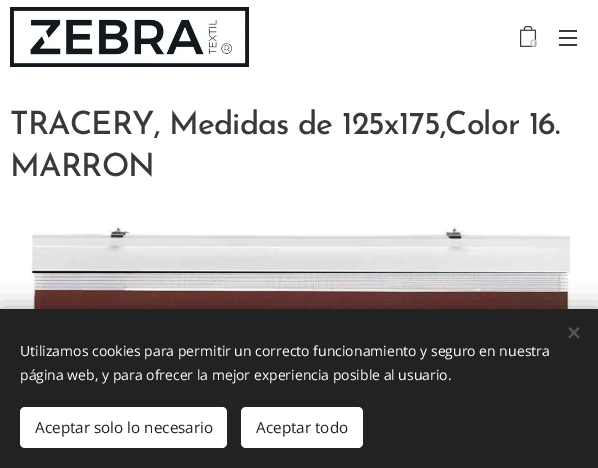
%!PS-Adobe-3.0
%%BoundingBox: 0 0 598 468
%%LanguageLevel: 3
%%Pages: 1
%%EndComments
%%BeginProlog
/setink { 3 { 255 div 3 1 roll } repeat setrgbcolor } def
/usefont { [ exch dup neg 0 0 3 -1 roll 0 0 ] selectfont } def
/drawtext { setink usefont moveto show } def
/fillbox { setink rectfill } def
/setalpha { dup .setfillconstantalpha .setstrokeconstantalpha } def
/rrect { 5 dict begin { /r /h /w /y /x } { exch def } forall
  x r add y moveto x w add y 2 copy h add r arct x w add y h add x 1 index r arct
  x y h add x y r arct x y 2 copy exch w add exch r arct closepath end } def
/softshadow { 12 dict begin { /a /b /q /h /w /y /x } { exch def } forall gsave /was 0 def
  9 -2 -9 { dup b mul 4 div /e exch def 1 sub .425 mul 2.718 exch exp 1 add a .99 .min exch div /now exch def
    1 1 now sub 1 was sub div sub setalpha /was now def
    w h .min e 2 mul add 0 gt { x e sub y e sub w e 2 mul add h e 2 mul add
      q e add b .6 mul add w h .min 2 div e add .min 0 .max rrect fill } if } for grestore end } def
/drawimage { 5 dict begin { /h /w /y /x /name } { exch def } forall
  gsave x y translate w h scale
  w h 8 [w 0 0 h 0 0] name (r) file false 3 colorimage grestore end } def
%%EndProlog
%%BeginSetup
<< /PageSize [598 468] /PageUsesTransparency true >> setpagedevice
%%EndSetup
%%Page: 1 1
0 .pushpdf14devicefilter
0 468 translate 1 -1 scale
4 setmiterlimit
0 0 598 468 255 255 255 fillbox
(assets/img1.rgb) 10 7 239 60 drawimage
(assets/img2.rgb) 520 25 17 22 drawimage
(0) 530 47 /Montserrat-Bold 11 199 199 199 drawtext
559 37 18 2 57 57 57 fillbox
559 30 18 2 57 57 57 fillbox
559 44 18 2 57 57 57 fillbox
/JosefinSans-Medium 32 usefont
10 134 moveto -0.8 0 (TRACERY, Medidas de 125x175,Color 16.) ashow
10 176 moveto -0.8 0 (MARRON) ashow
(assets/img3.rgb) 31 224 542 85 drawimage
0 0 0 setink
0 309 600 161 0 12.5 0.33 softshadow
0 309 598 159 34 34 34 fillbox
85 85 85 setink
568.5 337 moveto 578 327 lineto 579.5 328.5 lineto 570 338.5 lineto closepath fill
570 327 moveto 579.5 337 lineto 578 338.5 lineto 568.5 328.5 lineto closepath fill
(Utilizamos cookies para permitir un correcto funcionamiento y seguro en nuestra) 20 356 /OpenSans-Regular 14 255 255 255 drawtext
(página web, y para ofrecer la mejor experiencia posible al usuario.) 20 380 /OpenSans-Regular 14 255 255 255 drawtext
20 407 207 41 5 rrect fill
(Aceptar solo lo necesario) 35 433 /OpenSans-Regular 15.25 34 34 34 drawtext
255 255 255 setink
241 407 122 41 5 rrect fill
(Aceptar todo) 256 433 /OpenSans-Regular 15.25 34 34 34 drawtext
.poppdf14devicefilter showpage
%%EOF
